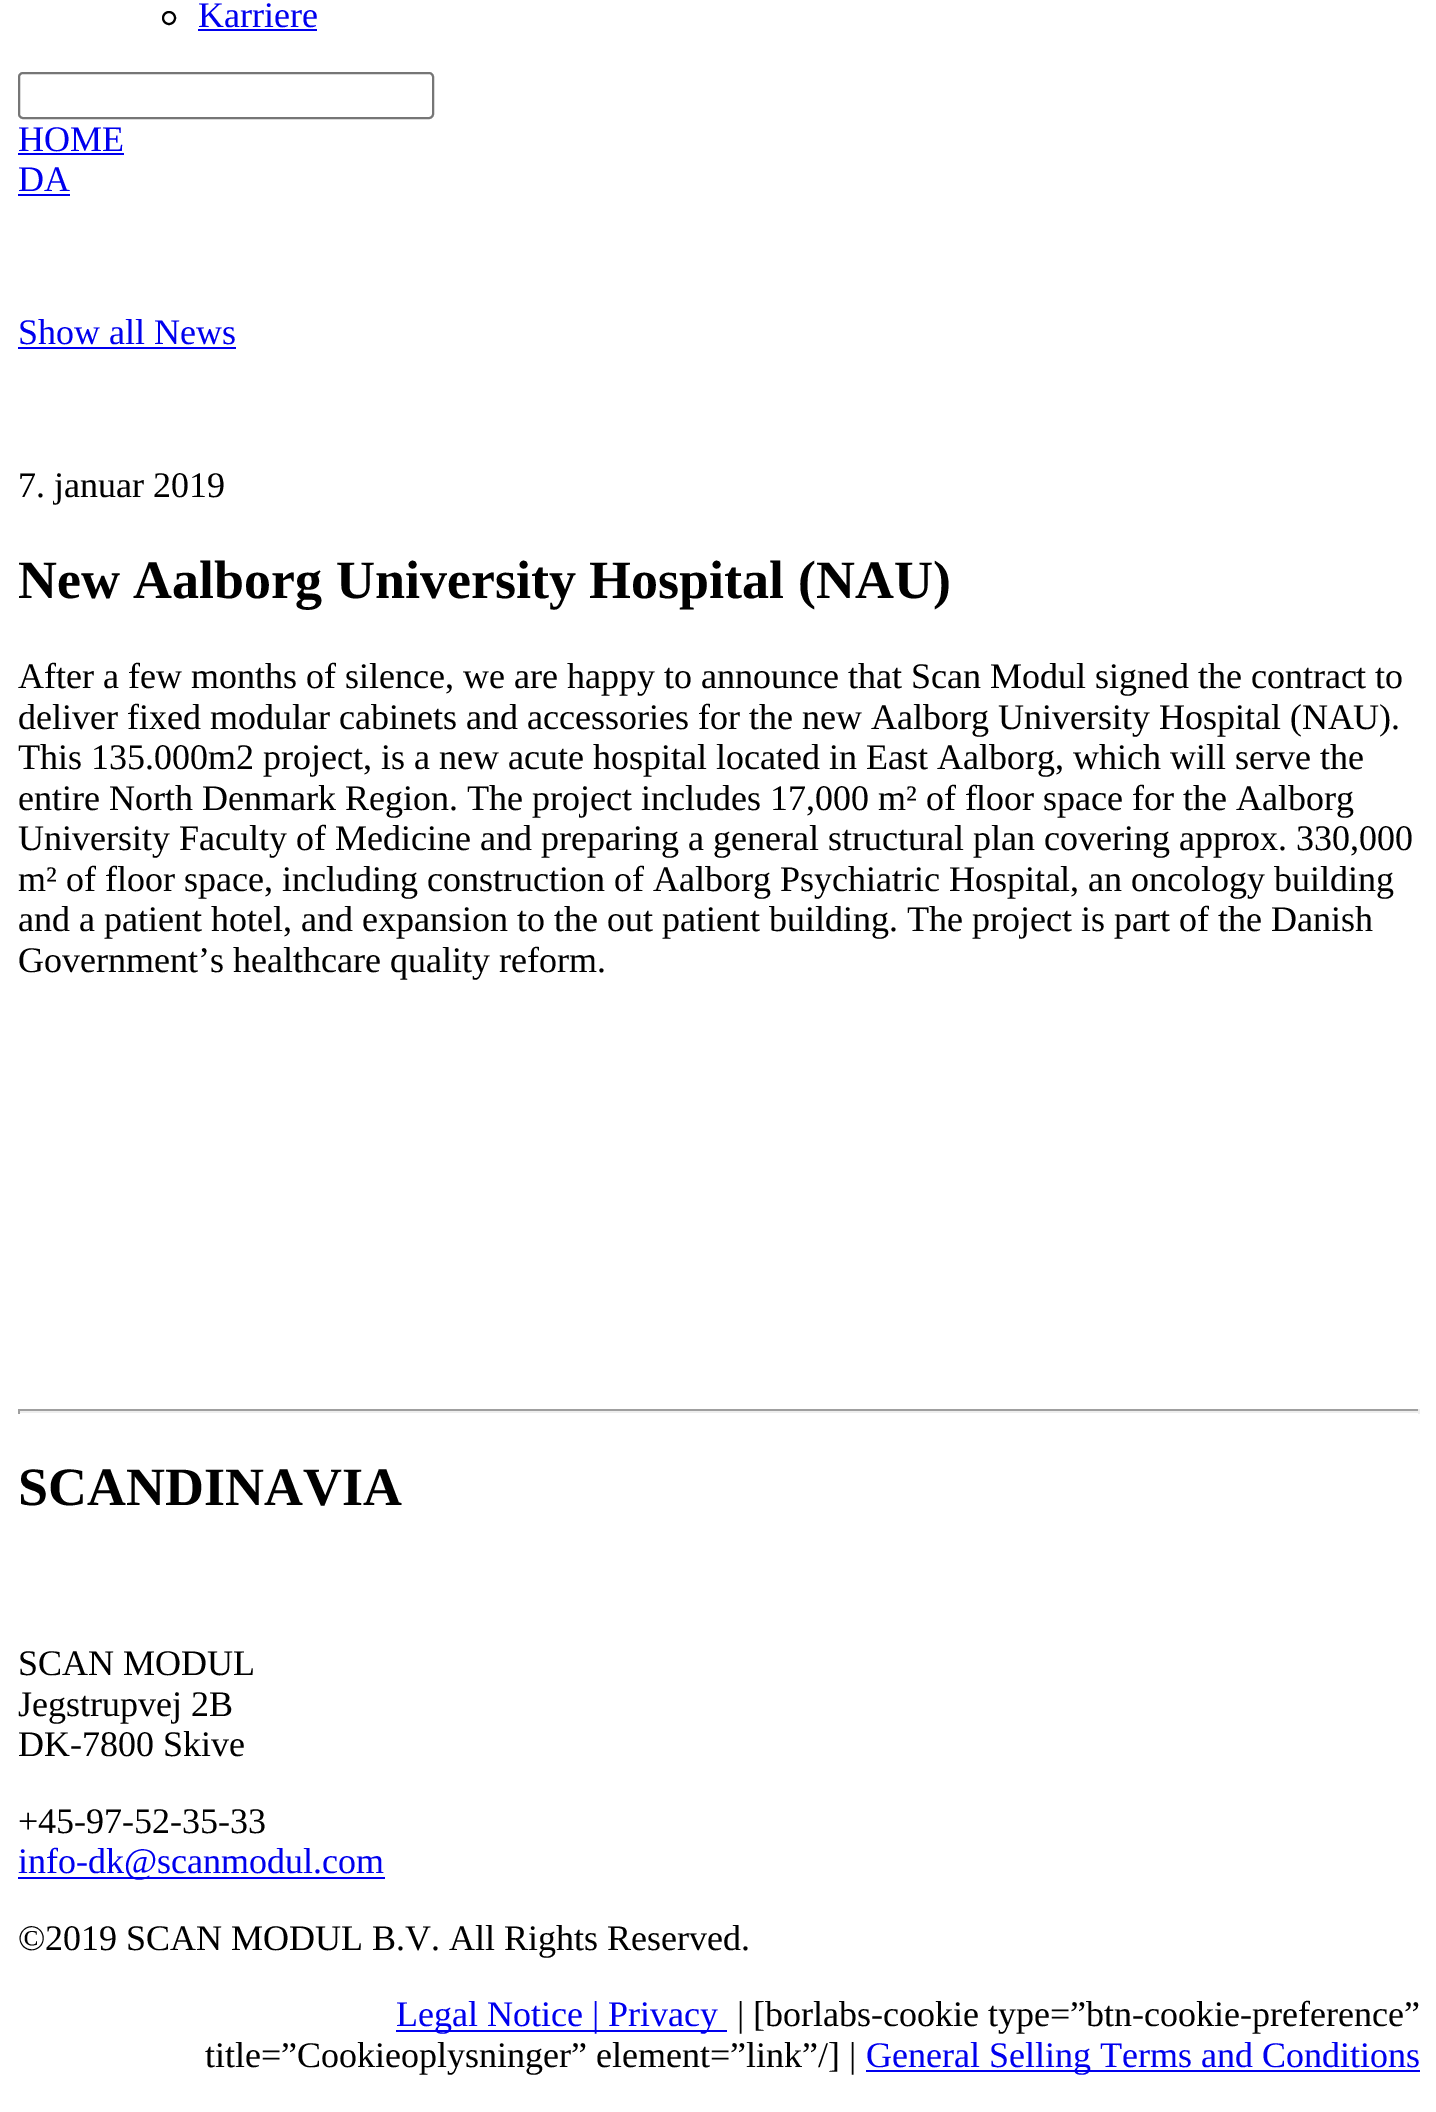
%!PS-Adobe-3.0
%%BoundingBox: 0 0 1436 2112
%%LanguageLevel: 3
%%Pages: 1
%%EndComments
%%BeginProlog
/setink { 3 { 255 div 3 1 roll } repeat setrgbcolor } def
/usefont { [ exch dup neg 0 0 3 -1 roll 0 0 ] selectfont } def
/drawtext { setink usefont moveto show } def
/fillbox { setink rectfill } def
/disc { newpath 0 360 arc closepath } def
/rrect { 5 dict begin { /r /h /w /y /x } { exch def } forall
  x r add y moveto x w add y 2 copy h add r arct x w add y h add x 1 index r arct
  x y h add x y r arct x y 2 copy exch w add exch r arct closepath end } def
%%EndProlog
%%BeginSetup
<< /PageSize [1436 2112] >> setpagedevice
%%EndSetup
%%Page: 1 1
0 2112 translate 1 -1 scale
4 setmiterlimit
0 0 1436 2112 255 255 255 fillbox
0 0 0 setink
2 setlinewidth
169 18 6 disc stroke
(Karriere) 198 27 /LiberationSerif-Regular 36 0 0 238 drawtext
198 29 119 2 0 0 238 fillbox
118 118 118 setink
19 73 414 45 4 rrect stroke
(HOME) 18 151 /LiberationSerif-Regular 36 0 0 238 drawtext
18 153 106 2 0 0 238 fillbox
(DA) 18 191 /LiberationSerif-Regular 36 0 0 238 drawtext
18 194 52 2 0 0 238 fillbox
(Show all News) 18 344 /LiberationSerif-Regular 36 0 0 238 drawtext
18 347 218 2 0 0 238 fillbox
(7. januar 2019) 18 497 /LiberationSerif-Regular 36 0 0 0 drawtext
(New Aalborg University Hospital \(NAU\)) 18 598 /LiberationSerif-Bold 54 0 0 0 drawtext
(After a few months of silence, we are happy to announce that Scan Modul signed the contract to) 18 688 /LiberationSerif-Regular 36 0 0 0 drawtext
(deliver fixed modular cabinets and accessories for the new Aalborg University Hospital \(NAU\).) 18 729 /LiberationSerif-Regular 36 0 0 0 drawtext
(This 135.000m2 project, is a new acute hospital located in East Aalborg, which will serve the) 18 769 /LiberationSerif-Regular 36 0 0 0 drawtext
(entire North Denmark Region. The project includes 17,000 m² of floor space for the Aalborg) 18 810 /LiberationSerif-Regular 36 0 0 0 drawtext
(University Faculty of Medicine and preparing a general structural plan covering approx. 330,000) 18 850 /LiberationSerif-Regular 36 0 0 0 drawtext
(m² of floor space, including construction of Aalborg Psychiatric Hospital, an oncology building) 18 891 /LiberationSerif-Regular 36 0 0 0 drawtext
(and a patient hotel, and expansion to the out patient building. The project is part of the Danish) 18 931 /LiberationSerif-Regular 36 0 0 0 drawtext
(Government’s healthcare quality reform.) 18 972 /LiberationSerif-Regular 36 0 0 0 drawtext
18 1409 1402 2 159 159 159 fillbox
1418 1409 2 5 238 238 238 fillbox
18 1411 1402 2 238 238 238 fillbox
18 1409 2 5 159 159 159 fillbox
(SCANDINAVIA) 18 1505 /LiberationSerif-Bold 54 0 0 0 drawtext
(SCAN MODUL) 18 1675 /LiberationSerif-Regular 36 0 0 0 drawtext
(Jegstrupvej 2B) 18 1716 /LiberationSerif-Regular 36 0 0 0 drawtext
(DK-7800 Skive) 18 1756 /LiberationSerif-Regular 36 0 0 0 drawtext
(+45-97-52-35-33) 18 1833 /LiberationSerif-Regular 36 0 0 0 drawtext
18 1877 367 2 0 0 238 fillbox
(info-dk@scanmodul.com) 18 1873 /LiberationSerif-Regular 36 0 0 238 drawtext
(©2019 SCAN MODUL B.V. All Rights Reserved.) 18 1950 /LiberationSerif-Regular 36 0 0 0 drawtext
396 2030 331 2 0 0 238 fillbox
(Legal Notice | Privacy) 396 2026 /LiberationSerif-Regular 36 0 0 238 drawtext
(| [borlabs-cookie type=”btn-cookie-preference”) 737 2026 /LiberationSerif-Regular 36 0 0 0 drawtext
(title=”Cookieoplysninger” element=”link”/] |) 205 2067 /LiberationSerif-Regular 36 0 0 0 drawtext
866 2070 554 2 0 0 238 fillbox
(General Selling Terms and Conditions) 866 2067 /LiberationSerif-Regular 36 0 0 238 drawtext
showpage
%%EOF
